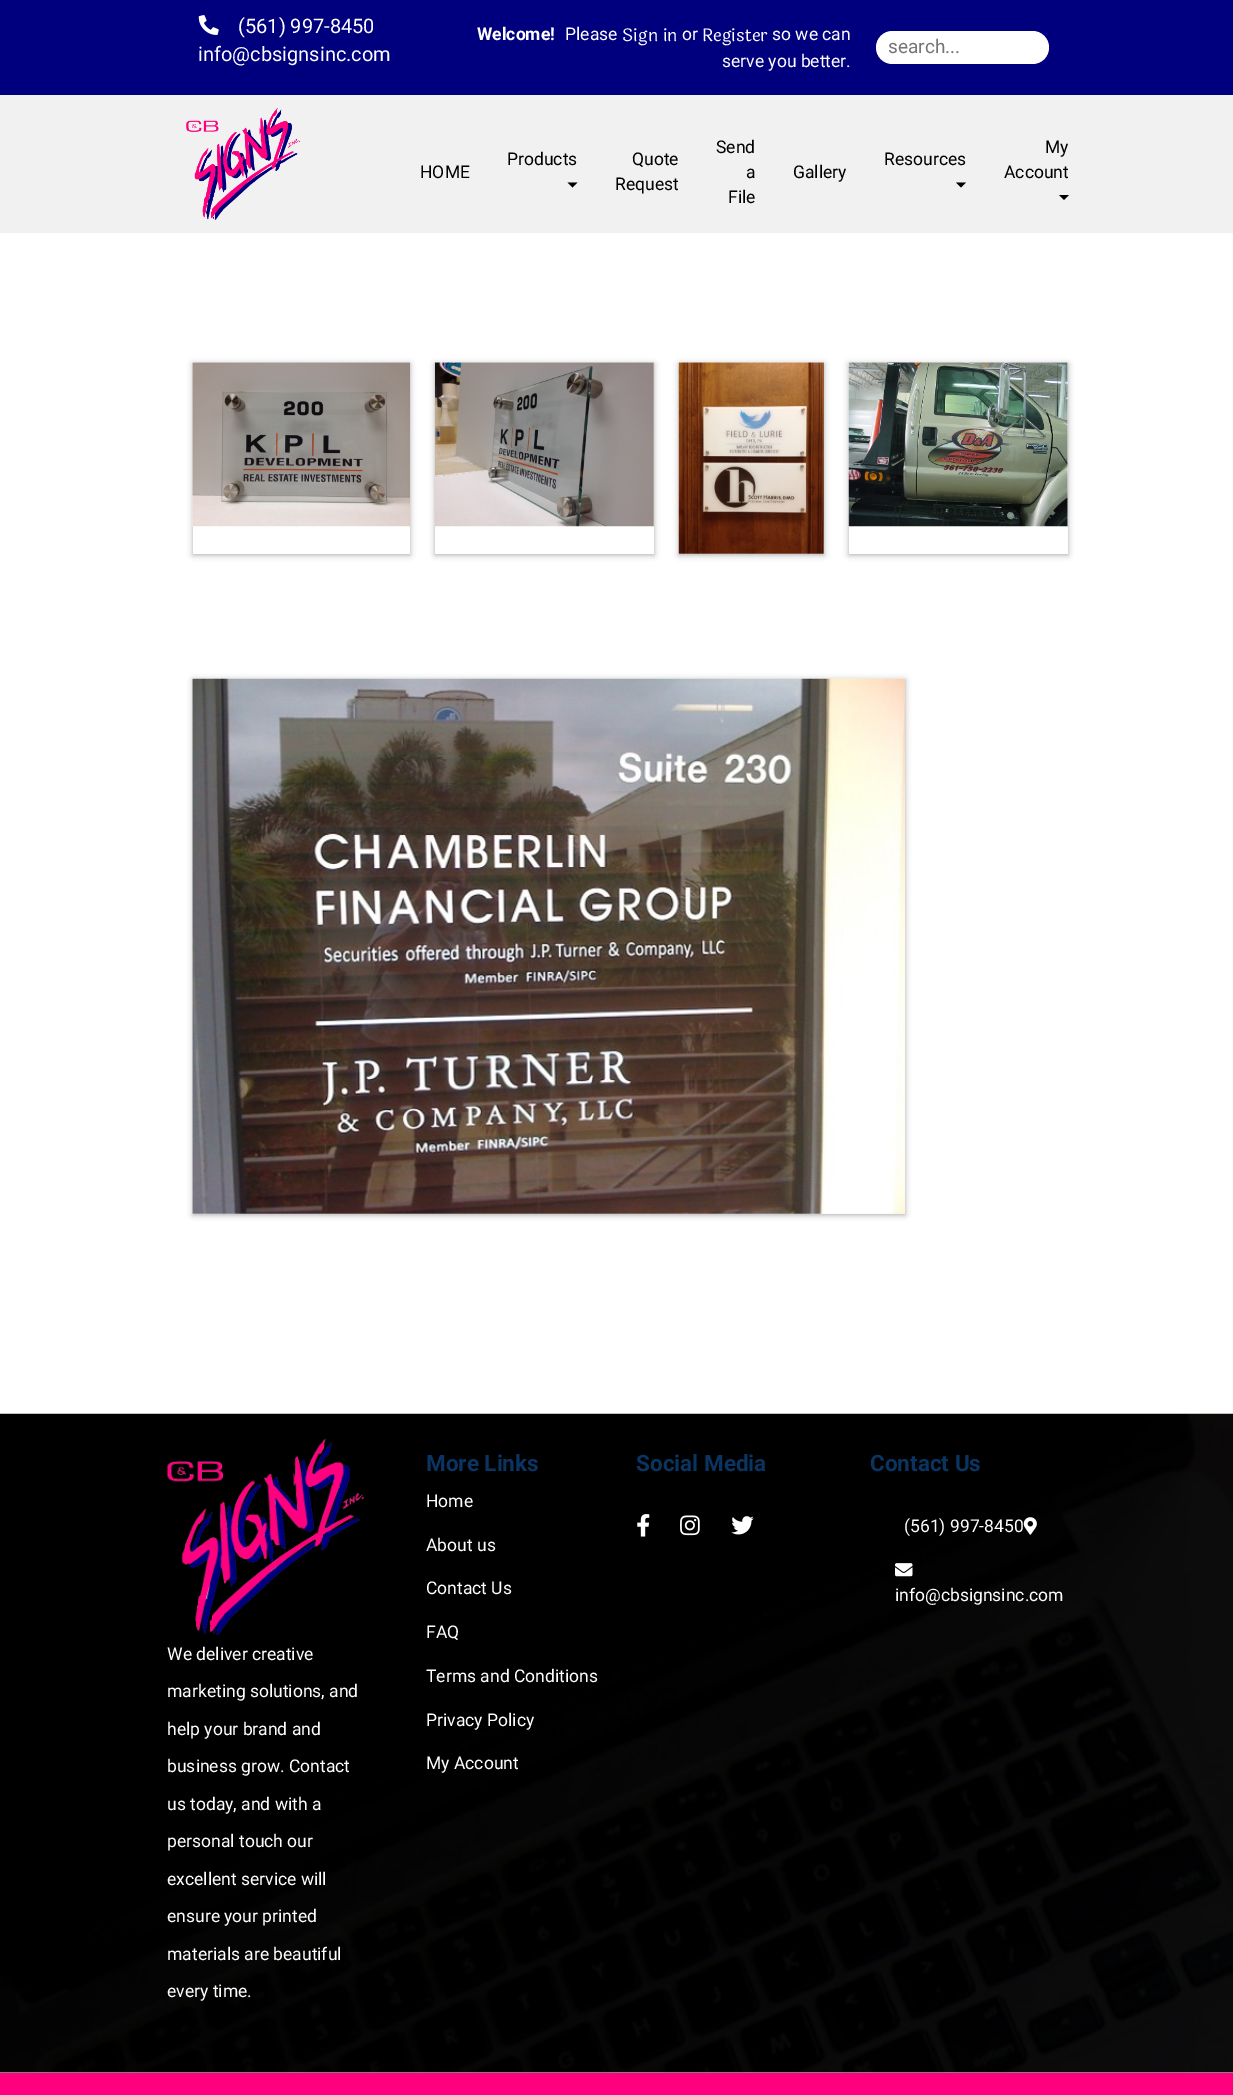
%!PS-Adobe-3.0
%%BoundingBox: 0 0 1233 2095
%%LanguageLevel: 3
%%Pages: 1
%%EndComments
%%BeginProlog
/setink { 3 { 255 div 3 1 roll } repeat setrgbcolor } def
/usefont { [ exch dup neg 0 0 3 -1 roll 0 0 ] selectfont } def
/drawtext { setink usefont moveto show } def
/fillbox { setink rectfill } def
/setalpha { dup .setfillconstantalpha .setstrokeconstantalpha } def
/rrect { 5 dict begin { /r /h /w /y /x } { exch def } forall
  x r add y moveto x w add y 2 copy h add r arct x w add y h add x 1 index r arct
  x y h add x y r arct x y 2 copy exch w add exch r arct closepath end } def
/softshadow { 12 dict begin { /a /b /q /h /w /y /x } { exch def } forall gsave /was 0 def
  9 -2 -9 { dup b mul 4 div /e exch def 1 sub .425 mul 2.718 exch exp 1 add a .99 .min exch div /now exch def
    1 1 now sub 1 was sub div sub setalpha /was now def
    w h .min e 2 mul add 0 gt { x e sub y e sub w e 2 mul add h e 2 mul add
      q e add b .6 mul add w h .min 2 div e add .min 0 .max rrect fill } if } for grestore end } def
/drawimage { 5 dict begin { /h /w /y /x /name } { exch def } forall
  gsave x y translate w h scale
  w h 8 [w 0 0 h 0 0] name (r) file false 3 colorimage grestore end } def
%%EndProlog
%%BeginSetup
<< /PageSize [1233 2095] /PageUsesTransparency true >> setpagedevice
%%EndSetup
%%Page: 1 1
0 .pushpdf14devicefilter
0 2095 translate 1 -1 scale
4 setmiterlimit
0 0 1233 2095 255 255 255 fillbox
0 95 1233 138 241 241 241 fillbox
0 0 1233 95 0 0 126 fillbox
(assets/img1.rgb) 198 15 21 20 drawimage
(\(561\) 997-8450) 238 33 /Roboto-Regular 20 255 255 255 drawtext
(info@cbsignsinc.com) 198 61 /Roboto-Regular 20 255 255 255 drawtext
(Welcome!) 477 40 /Roboto-Bold 17.5 255 255 255 drawtext
(Please) 565 40 /Roboto-Regular 17.5 255 255 255 drawtext
(Sign in) 622 41 /Laila-Regular 17.5 255 255 255 drawtext
(or) 682 40 /Roboto-Regular 17.5 255 255 255 drawtext
(Register) 702 41 /Laila-Regular 17.5 255 255 255 drawtext
(so we can) 772 40 /Roboto-Regular 17.5 255 255 255 drawtext
(serve you better.) 722 67 /Roboto-Regular 17.5 255 255 255 drawtext
876 31 173 33 16.5 rrect fill
(search...) 888 53 /Roboto-Regular 19 117 117 117 drawtext
(assets/img2.rgb) 186 108 115 112 drawimage
(Products) 507 165 /Roboto-Regular 17.5 0 0 0 drawtext
567.5 182.5 moveto 577.5 182.5 lineto 572.5 187.5 lineto closepath fill
(Quote) 632 165 /Roboto-Regular 17.5 0 0 0 drawtext
(Request) 615 190 /Roboto-Regular 17.5 0 0 0 drawtext
(Send) 716 153 /Roboto-Regular 17.5 0 0 0 drawtext
(a) 746 178 /Roboto-Regular 17.5 0 0 0 drawtext
(File) 728 203 /Roboto-Regular 17.5 0 0 0 drawtext
(Resources) 884 165 /Roboto-Regular 17.5 0 0 0 drawtext
956 182.5 moveto 966 182.5 lineto 961 187.5 lineto closepath fill
(My) 1045 153 /Roboto-Regular 17.5 0 0 0 drawtext
(Account) 1004 178 /Roboto-Regular 17.5 0 0 0 drawtext
1059 195 moveto 1069 195 lineto 1064 200 lineto closepath fill
(HOME) 420 178 /Roboto-Regular 17.5 0 0 0 drawtext
(Gallery) 793 178 /Roboto-Regular 17.5 0 0 0 drawtext
gsave
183 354 moveto 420 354 lineto 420 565 lineto 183 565 lineto closepath 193 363 moveto 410 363 lineto 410 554 lineto 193 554 lineto closepath eoclip newpath
168 168 168 setink
193 364 217 191 0 3 1 softshadow
grestore
(assets/img3.rgb) 192 362 218 165 drawimage
gsave
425 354 moveto 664 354 lineto 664 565 lineto 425 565 lineto closepath 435 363 moveto 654 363 lineto 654 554 lineto 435 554 lineto closepath eoclip newpath
168 168 168 setink
435 364 219 191 0 3 1 softshadow
grestore
(assets/img4.rgb) 435 362 219 165 drawimage
168 168 168 setink
679 364 145 191 0 3 1 softshadow
(assets/img5.rgb) 678 362 146 192 drawimage
gsave
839 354 moveto 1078 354 lineto 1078 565 lineto 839 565 lineto closepath 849 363 moveto 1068 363 lineto 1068 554 lineto 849 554 lineto closepath eoclip newpath
849 364 219 191 0 3 1 softshadow
grestore
(assets/img6.rgb) 848 362 220 165 drawimage
193 680 712 535 0 3 1 softshadow
(assets/img7.rgb) 192 678 713 536 drawimage
(assets/img8.rgb) 0 1413 1233 660 drawimage
(More Links) 426 1471 /Roboto-Bold 22.5 10 52 97 drawtext
(Home) 426 1507 /Roboto-Regular 17.5 255 255 255 drawtext
(About us) 426 1551 /Roboto-Regular 17.5 255 255 255 drawtext
(Contact Us) 426 1594 /Roboto-Regular 17.5 255 255 255 drawtext
(FAQ) 426 1638 /Roboto-Regular 17.5 255 255 255 drawtext
(Terms and Conditions) 426 1682 /Roboto-Regular 17.5 255 255 255 drawtext
(Privacy Policy) 426 1726 /Roboto-Regular 17.5 255 255 255 drawtext
(My Account) 426 1769 /Roboto-Regular 17.5 255 255 255 drawtext
(Social Media) 636 1471 /Roboto-Bold 22.5 10 52 97 drawtext
(assets/img9.rgb) 637 1514 13 23 drawimage
(assets/img10.rgb) 680 1515 20 21 drawimage
(assets/img11.rgb) 731 1516 23 19 drawimage
(Contact Us) 870 1471 /Roboto-Bold 22.5 10 52 97 drawtext
(\(561\) 997-8450) 904 1532 /Roboto-Regular 17.5 255 255 255 drawtext
(assets/img12.rgb) 1023 1517 14 18 drawimage
(assets/img13.rgb) 895 1563 18 14 drawimage
(info@cbsignsinc.com) 895 1601 /Roboto-Regular 17.5 255 255 255 drawtext
(assets/img14.rgb) 167 1438 197 197 drawimage
(We deliver creative) 167 1660 /Roboto-Regular 17.5 255 255 255 drawtext
(marketing solutions, and) 167 1697 /Roboto-Regular 17.5 255 255 255 drawtext
(help your brand and) 167 1735 /Roboto-Regular 17.5 255 255 255 drawtext
(business grow. Contact) 167 1772 /Roboto-Regular 17.5 255 255 255 drawtext
(us today, and with a) 167 1810 /Roboto-Regular 17.5 255 255 255 drawtext
(personal touch our) 167 1847 /Roboto-Regular 17.5 255 255 255 drawtext
(excellent service will) 167 1885 /Roboto-Regular 17.5 255 255 255 drawtext
(ensure your printed) 167 1922 /Roboto-Regular 17.5 255 255 255 drawtext
(materials are beautiful) 167 1960 /Roboto-Regular 17.5 255 255 255 drawtext
(every time.) 167 1997 /Roboto-Regular 17.5 255 255 255 drawtext
0 2073 1233 22 255 1 126 fillbox
.poppdf14devicefilter showpage
%%EOF
